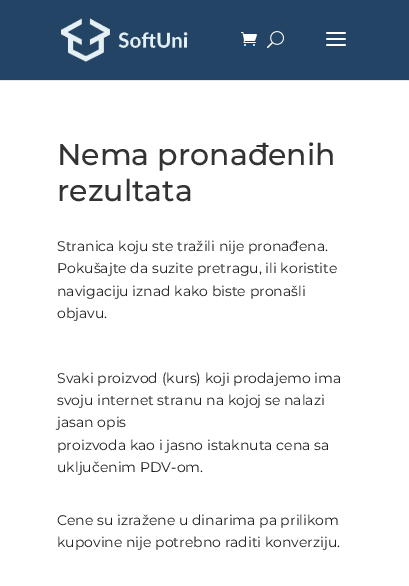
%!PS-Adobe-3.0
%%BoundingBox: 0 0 409 586
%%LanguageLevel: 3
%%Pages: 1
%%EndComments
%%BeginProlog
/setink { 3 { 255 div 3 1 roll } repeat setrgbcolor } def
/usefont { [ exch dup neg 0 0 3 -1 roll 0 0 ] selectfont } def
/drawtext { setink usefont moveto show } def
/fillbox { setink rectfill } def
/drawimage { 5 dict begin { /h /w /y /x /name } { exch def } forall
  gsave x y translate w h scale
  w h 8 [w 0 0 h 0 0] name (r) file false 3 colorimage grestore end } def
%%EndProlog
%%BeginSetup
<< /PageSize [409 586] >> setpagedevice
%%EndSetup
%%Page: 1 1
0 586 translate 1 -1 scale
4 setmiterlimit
0 0 409 586 255 255 255 fillbox
0 80 409 1 230 230 230 fillbox
0 0 409 80 35 68 101 fillbox
(assets/img1.rgb) 61 18 127 44 drawimage
(assets/img2.rgb) 241 32 16 14 drawimage
(assets/img3.rgb) 267 31 17 18 drawimage
(assets/img4.rgb) 326 32 20 14 drawimage
(Nema pronađenih) 57 165 /Montserrat-Medium 30 51 51 51 drawtext
(rezultata) 57 201 /Montserrat-Medium 30 51 51 51 drawtext
(Stranica koju ste tražili nije pronađena.) 57 251 /Montserrat-Regular 14 34 34 34 drawtext
(Pokušajte da suzite pretragu, ili koristite) 57 273 /Montserrat-Regular 14 34 34 34 drawtext
(navigaciju iznad kako biste pronašli) 57 296 /Montserrat-Regular 14 34 34 34 drawtext
(objavu.) 57 318 /Montserrat-Regular 14 34 34 34 drawtext
(Svaki proizvod \(kurs\) koji prodajemo ima) 57 383 /Montserrat-Regular 14 34 34 34 drawtext
(svoju internet stranu na kojoj se nalazi) 57 405 /Montserrat-Regular 14 34 34 34 drawtext
(jasan opis) 57 427 /Montserrat-Regular 14 34 34 34 drawtext
(proizvoda kao i jasno istaknuta cena sa) 57 450 /Montserrat-Regular 14 34 34 34 drawtext
(uključenim PDV-om.) 57 472 /Montserrat-Regular 14 34 34 34 drawtext
(Cene su izražene u dinarima pa prilikom) 57 525 /Montserrat-Regular 14 34 34 34 drawtext
(kupovine nije potrebno raditi konverziju.) 57 547 /Montserrat-Regular 14 34 34 34 drawtext
showpage
%%EOF
